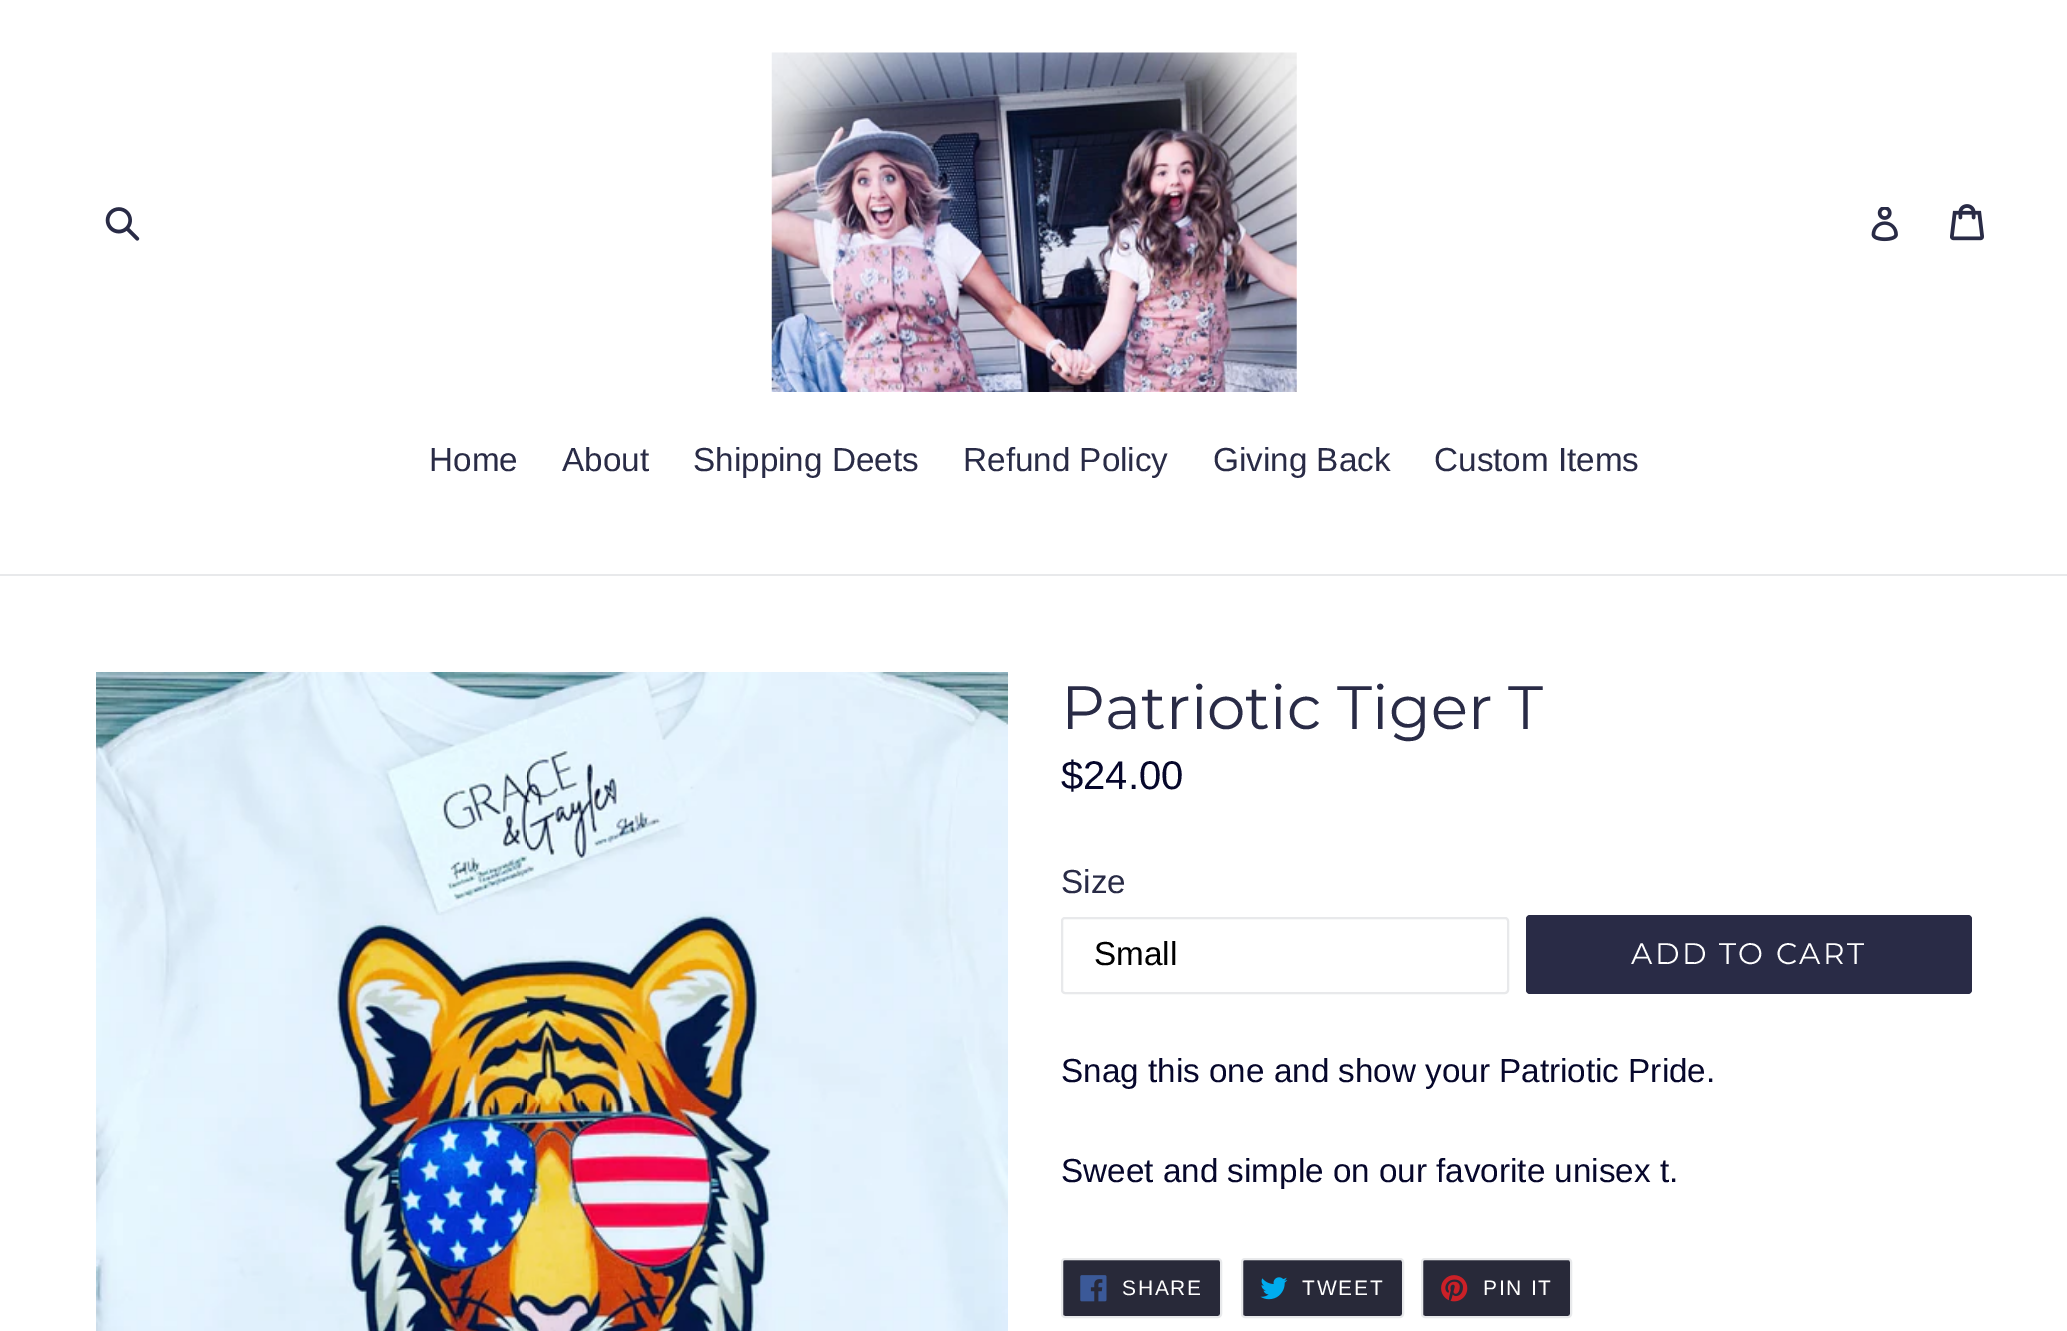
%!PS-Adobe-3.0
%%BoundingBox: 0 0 2067 1331
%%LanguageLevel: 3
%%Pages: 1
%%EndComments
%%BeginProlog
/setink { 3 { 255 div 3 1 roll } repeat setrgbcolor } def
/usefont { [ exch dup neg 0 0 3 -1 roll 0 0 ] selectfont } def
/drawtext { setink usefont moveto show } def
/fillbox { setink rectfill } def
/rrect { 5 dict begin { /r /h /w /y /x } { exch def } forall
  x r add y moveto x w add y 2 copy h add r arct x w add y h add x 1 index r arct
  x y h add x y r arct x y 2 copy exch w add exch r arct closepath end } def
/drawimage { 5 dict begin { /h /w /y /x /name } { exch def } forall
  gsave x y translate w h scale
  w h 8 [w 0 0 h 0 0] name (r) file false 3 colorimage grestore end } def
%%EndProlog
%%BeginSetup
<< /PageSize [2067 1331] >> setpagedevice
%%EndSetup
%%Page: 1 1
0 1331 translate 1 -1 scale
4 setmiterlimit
0 0 2067 1331 255 255 255 fillbox
(assets/img1.rgb) 105 207 35 34 drawimage
(assets/img2.rgb) 771 52 526 340 drawimage
(assets/img3.rgb) 1871 207 27 35 drawimage
(assets/img4.rgb) 1950 204 34 37 drawimage
0 574 2067 2 232 233 235 fillbox
(Home) 429 471 /LiberationSans-Regular 33.25 41 43 70 drawtext
(About) 562 471 /LiberationSans-Regular 33.25 41 43 70 drawtext
(Shipping Deets) 693 471 /LiberationSans-Regular 33.25 41 43 70 drawtext
(Refund Policy) 963 471 /LiberationSans-Regular 33.25 41 43 70 drawtext
(Giving Back) 1213 471 /LiberationSans-Regular 33.25 41 43 70 drawtext
(Custom Items) 1434 471 /LiberationSans-Regular 33.25 41 43 70 drawtext
(assets/img5.rgb) 96 672 912 659 drawimage
(Patriotic Tiger T) 1061 729 /Montserrat-Thin 61.25 41 43 70 drawtext
($24.00) 1061 789 /LiberationSans-Regular 40 6 7 43 drawtext
(Size) 1061 893 /LiberationSans-Regular 33.25 41 43 70 drawtext
232 233 235 setink
2 setlinewidth
1062 918 446 75 3 rrect stroke
(Small) 1094 965 /LiberationSans-Regular 33.25 0 0 0 drawtext
41 43 70 setink
1526 915 446 79 4 rrect fill
/Montserrat-Thin 29.75 usefont
255 255 255 setink
1631 964 moveto 2.4 0 (ADD TO CART) ashow
(Snag this one and show your Patriotic Pride.) 1061 1082 /LiberationSans-Regular 33.25 6 7 43 drawtext
(Sweet and simple on our favorite unisex t.) 1061 1182 /LiberationSans-Regular 33.25 6 7 43 drawtext
40 41 57 setink
1062 1259 159 58 3 rrect gsave fill grestore
232 233 235 setink
stroke
(assets/img6.rgb) 1080 1275 27 27 drawimage
/LiberationSans-Regular 21 usefont
255 255 255 setink
1122 1295 moveto 1.75 0 (SHARE) ashow
40 41 57 setink
1242 1259 161 58 3 rrect gsave fill grestore
232 233 235 setink
stroke
(assets/img7.rgb) 1260 1277 28 23 drawimage
255 255 255 setink
1302 1295 moveto 1.75 0 (TWEET) ashow
40 41 57 setink
1422 1259 149 58 3 rrect gsave fill grestore
232 233 235 setink
stroke
(assets/img8.rgb) 1441 1275 27 27 drawimage
255 255 255 setink
1483 1295 moveto 1.75 0 (PIN IT) ashow
showpage
%%EOF
